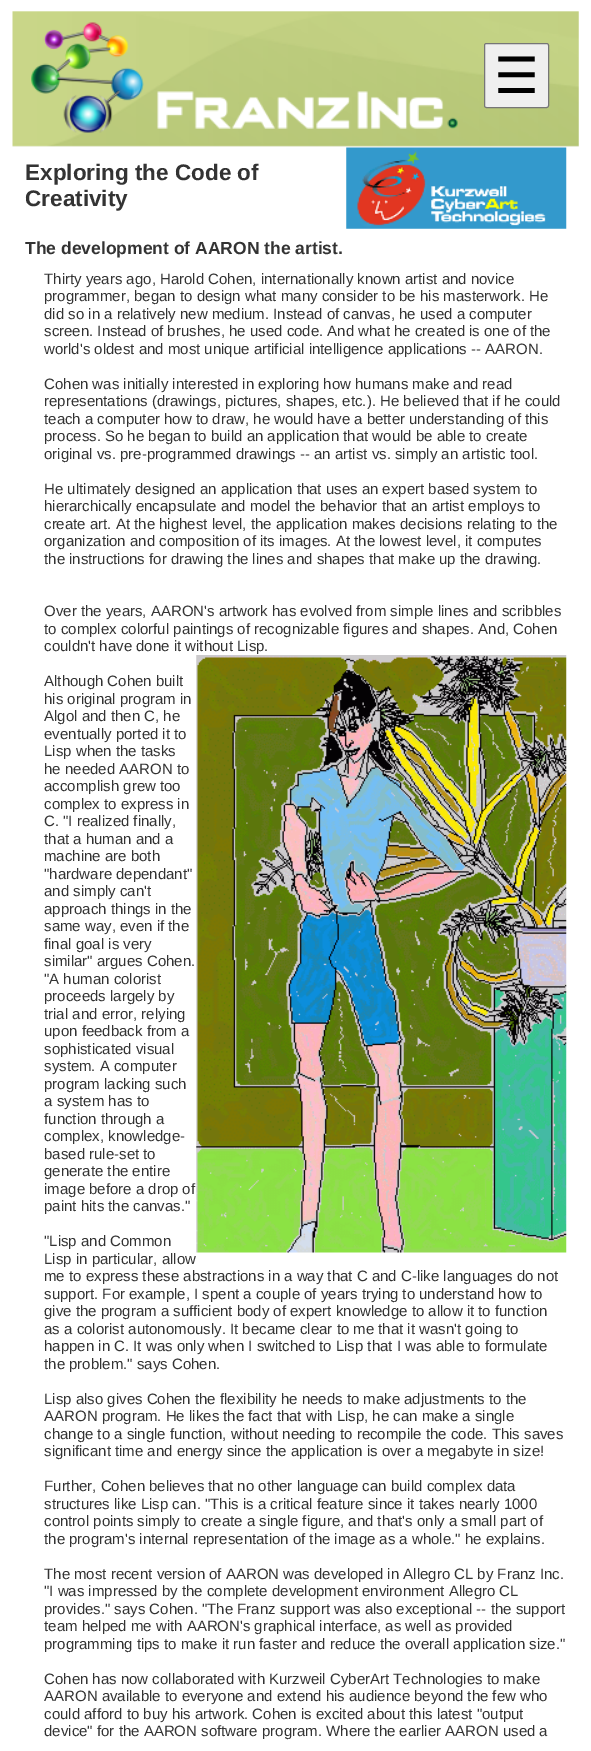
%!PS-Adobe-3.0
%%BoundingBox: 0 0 591 1751
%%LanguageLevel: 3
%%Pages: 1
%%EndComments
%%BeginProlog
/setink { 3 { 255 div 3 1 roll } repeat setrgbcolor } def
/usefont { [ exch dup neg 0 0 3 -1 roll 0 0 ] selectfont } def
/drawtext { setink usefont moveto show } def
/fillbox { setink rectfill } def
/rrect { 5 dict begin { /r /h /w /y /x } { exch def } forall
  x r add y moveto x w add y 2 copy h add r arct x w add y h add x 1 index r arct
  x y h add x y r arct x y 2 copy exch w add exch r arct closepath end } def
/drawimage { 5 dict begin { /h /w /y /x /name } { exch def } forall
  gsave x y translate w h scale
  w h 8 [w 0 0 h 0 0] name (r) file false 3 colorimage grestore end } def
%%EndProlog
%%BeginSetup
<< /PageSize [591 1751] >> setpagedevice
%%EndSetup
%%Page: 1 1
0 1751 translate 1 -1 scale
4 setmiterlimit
0 0 591 1751 255 255 255 fillbox
(assets/img1.rgb) 12 11 567 136 drawimage
(assets/img2.rgb) 31 22 427 111 drawimage
239 239 239 setink
484.5 43.5 64 64 2 rrect gsave fill grestore
118 118 118 setink
stroke
(☰) 494 93 /DejaVuSans-Regular 50 0 0 0 drawtext
(Exploring the Code of) 25 180 /LiberationSans-Bold 22.5 51 51 51 drawtext
(Creativity) 25 206 /LiberationSans-Bold 22.5 51 51 51 drawtext
(assets/img3.rgb) 346 147 221 82 drawimage
(The development of AARON the artist.) 25 254 /LiberationSans-Bold 17.5 51 51 51 drawtext
(Thirty years ago, Harold Cohen, internationally known artist and novice) 44 284 /LiberationSans-Regular 15 51 51 51 drawtext
(programmer, began to design what many consider to be his masterwork. He) 44 301 /LiberationSans-Regular 15 51 51 51 drawtext
(did so in a relatively new medium. Instead of canvas, he used a computer) 44 319 /LiberationSans-Regular 15 51 51 51 drawtext
(screen. Instead of brushes, he used code. And what he created is one of the) 44 336 /LiberationSans-Regular 15 51 51 51 drawtext
(world's oldest and most unique artificial intelligence applications -- AARON.) 44 354 /LiberationSans-Regular 15 51 51 51 drawtext
(Cohen was initially interested in exploring how humans make and read) 44 389 /LiberationSans-Regular 15 51 51 51 drawtext
(representations \(drawings, pictures, shapes, etc.\). He believed that if he could) 44 406 /LiberationSans-Regular 15 51 51 51 drawtext
(teach a computer how to draw, he would have a better understanding of this) 44 424 /LiberationSans-Regular 15 51 51 51 drawtext
(process. So he began to build an application that would be able to create) 44 441 /LiberationSans-Regular 15 51 51 51 drawtext
(original vs. pre-programmed drawings -- an artist vs. simply an artistic tool.) 44 459 /LiberationSans-Regular 15 51 51 51 drawtext
(He ultimately designed an application that uses an expert based system to) 44 494 /LiberationSans-Regular 15 51 51 51 drawtext
(hierarchically encapsulate and model the behavior that an artist employs to) 44 511 /LiberationSans-Regular 15 51 51 51 drawtext
(create art. At the highest level, the application makes decisions relating to the) 44 529 /LiberationSans-Regular 15 51 51 51 drawtext
(organization and composition of its images. At the lowest level, it computes) 44 546 /LiberationSans-Regular 15 51 51 51 drawtext
(the instructions for drawing the lines and shapes that make up the drawing.) 44 564 /LiberationSans-Regular 15 51 51 51 drawtext
(Over the years, AARON's artwork has evolved from simple lines and scribbles) 44 616 /LiberationSans-Regular 15 51 51 51 drawtext
(to complex colorful paintings of recognizable figures and shapes. And, Cohen) 44 634 /LiberationSans-Regular 15 51 51 51 drawtext
(couldn't have done it without Lisp.) 44 651 /LiberationSans-Regular 15 51 51 51 drawtext
(Although Cohen built) 44 686 /LiberationSans-Regular 15 51 51 51 drawtext
(assets/img4.rgb) 196 655 371 598 drawimage
(his original program in) 44 704 /LiberationSans-Regular 15 51 51 51 drawtext
(Algol and then C, he) 44 721 /LiberationSans-Regular 15 51 51 51 drawtext
(eventually ported it to) 44 739 /LiberationSans-Regular 15 51 51 51 drawtext
(Lisp when the tasks) 44 756 /LiberationSans-Regular 15 51 51 51 drawtext
(he needed AARON to) 44 774 /LiberationSans-Regular 15 51 51 51 drawtext
(accomplish grew too) 44 791 /LiberationSans-Regular 15 51 51 51 drawtext
(complex to express in) 44 809 /LiberationSans-Regular 15 51 51 51 drawtext
(C. "I realized finally,) 44 826 /LiberationSans-Regular 15 51 51 51 drawtext
(that a human and a) 44 844 /LiberationSans-Regular 15 51 51 51 drawtext
(machine are both) 44 861 /LiberationSans-Regular 15 51 51 51 drawtext
("hardware dependant") 44 879 /LiberationSans-Regular 15 51 51 51 drawtext
(and simply can't) 44 896 /LiberationSans-Regular 15 51 51 51 drawtext
(approach things in the) 44 914 /LiberationSans-Regular 15 51 51 51 drawtext
(same way, even if the) 44 931 /LiberationSans-Regular 15 51 51 51 drawtext
(final goal is very) 44 949 /LiberationSans-Regular 15 51 51 51 drawtext
(similar" argues Cohen.) 44 966 /LiberationSans-Regular 15 51 51 51 drawtext
("A human colorist) 44 984 /LiberationSans-Regular 15 51 51 51 drawtext
(proceeds largely by) 44 1001 /LiberationSans-Regular 15 51 51 51 drawtext
(trial and error, relying) 44 1019 /LiberationSans-Regular 15 51 51 51 drawtext
(upon feedback from a) 44 1036 /LiberationSans-Regular 15 51 51 51 drawtext
(sophisticated visual) 44 1054 /LiberationSans-Regular 15 51 51 51 drawtext
(system. A computer) 44 1071 /LiberationSans-Regular 15 51 51 51 drawtext
(program lacking such) 44 1089 /LiberationSans-Regular 15 51 51 51 drawtext
(a system has to) 44 1106 /LiberationSans-Regular 15 51 51 51 drawtext
(function through a) 44 1124 /LiberationSans-Regular 15 51 51 51 drawtext
(complex, knowledge-) 44 1141 /LiberationSans-Regular 15 51 51 51 drawtext
(based rule-set to) 44 1159 /LiberationSans-Regular 15 51 51 51 drawtext
(generate the entire) 44 1176 /LiberationSans-Regular 15 51 51 51 drawtext
(image before a drop of) 44 1194 /LiberationSans-Regular 15 51 51 51 drawtext
(paint hits the canvas.") 44 1211 /LiberationSans-Regular 15 51 51 51 drawtext
("Lisp and Common) 44 1246 /LiberationSans-Regular 15 51 51 51 drawtext
(Lisp in particular, allow) 44 1264 /LiberationSans-Regular 15 51 51 51 drawtext
(me to express these abstractions in a way that C and C-like languages do not) 44 1281 /LiberationSans-Regular 15 51 51 51 drawtext
(support. For example, I spent a couple of years trying to understand how to) 44 1299 /LiberationSans-Regular 15 51 51 51 drawtext
(give the program a sufficient body of expert knowledge to allow it to function) 44 1316 /LiberationSans-Regular 15 51 51 51 drawtext
(as a colorist autonomously. It became clear to me that it wasn't going to) 44 1334 /LiberationSans-Regular 15 51 51 51 drawtext
(happen in C. It was only when I switched to Lisp that I was able to formulate) 44 1351 /LiberationSans-Regular 15 51 51 51 drawtext
(the problem." says Cohen.) 44 1369 /LiberationSans-Regular 15 51 51 51 drawtext
(Lisp also gives Cohen the flexibility he needs to make adjustments to the) 44 1404 /LiberationSans-Regular 15 51 51 51 drawtext
(AARON program. He likes the fact that with Lisp, he can make a single) 44 1421 /LiberationSans-Regular 15 51 51 51 drawtext
(change to a single function, without needing to recompile the code. This saves) 44 1439 /LiberationSans-Regular 15 51 51 51 drawtext
(significant time and energy since the application is over a megabyte in size!) 44 1456 /LiberationSans-Regular 15 51 51 51 drawtext
(Further, Cohen believes that no other language can build complex data) 44 1491 /LiberationSans-Regular 15 51 51 51 drawtext
(structures like Lisp can. "This is a critical feature since it takes nearly 1000) 44 1509 /LiberationSans-Regular 15 51 51 51 drawtext
(control points simply to create a single figure, and that's only a small part of) 44 1526 /LiberationSans-Regular 15 51 51 51 drawtext
(the program's internal representation of the image as a whole." he explains.) 44 1544 /LiberationSans-Regular 15 51 51 51 drawtext
(The most recent version of AARON was developed in Allegro CL by Franz Inc.) 44 1579 /LiberationSans-Regular 15 51 51 51 drawtext
("I was impressed by the complete development environment Allegro CL) 44 1596 /LiberationSans-Regular 15 51 51 51 drawtext
(provides." says Cohen. "The Franz support was also exceptional -- the support) 44 1614 /LiberationSans-Regular 15 51 51 51 drawtext
(team helped me with AARON's graphical interface, as well as provided) 44 1631 /LiberationSans-Regular 15 51 51 51 drawtext
(programming tips to make it run faster and reduce the overall application size.") 44 1649 /LiberationSans-Regular 15 51 51 51 drawtext
(Cohen has now collaborated with Kurzweil CyberArt Technologies to make) 44 1684 /LiberationSans-Regular 15 51 51 51 drawtext
(AARON available to everyone and extend his audience beyond the few who) 44 1701 /LiberationSans-Regular 15 51 51 51 drawtext
(could afford to buy his artwork. Cohen is excited about this latest "output) 44 1719 /LiberationSans-Regular 15 51 51 51 drawtext
(device" for the AARON software program. Where the earlier AARON used a) 44 1736 /LiberationSans-Regular 15 51 51 51 drawtext
showpage
%%EOF
